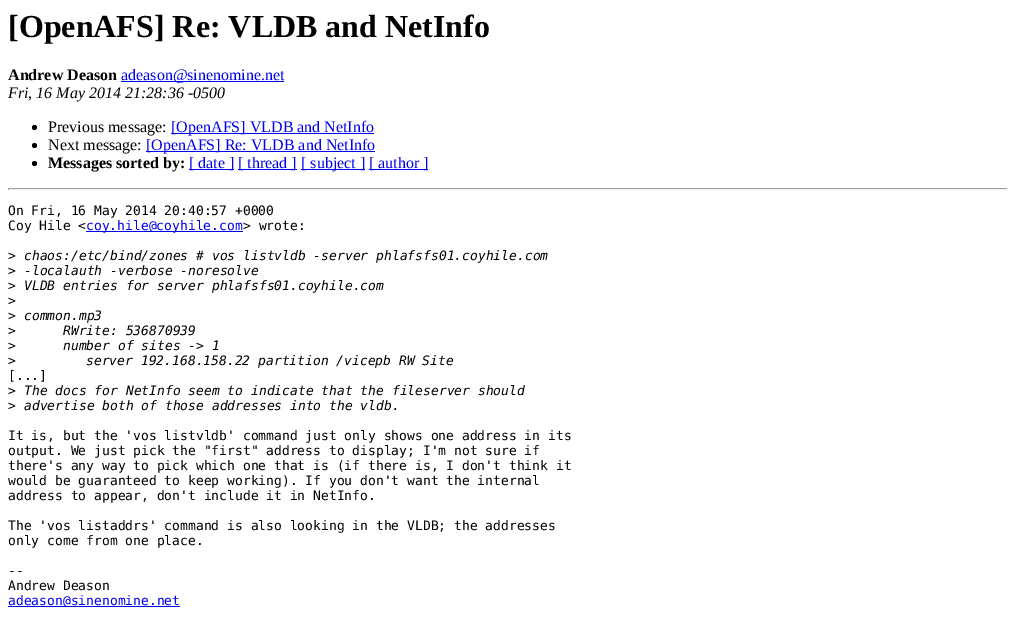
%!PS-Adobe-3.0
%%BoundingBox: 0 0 1016 635
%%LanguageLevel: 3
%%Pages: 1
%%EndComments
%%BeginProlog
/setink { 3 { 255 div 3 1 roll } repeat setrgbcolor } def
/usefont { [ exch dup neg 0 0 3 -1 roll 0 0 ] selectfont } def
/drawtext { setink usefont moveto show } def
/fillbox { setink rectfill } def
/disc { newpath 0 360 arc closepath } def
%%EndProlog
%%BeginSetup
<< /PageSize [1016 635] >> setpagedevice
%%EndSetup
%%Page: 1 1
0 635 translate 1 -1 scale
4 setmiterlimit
0 0 1016 635 255 255 255 fillbox
([OpenAFS] Re: VLDB and NetInfo) 8 37 /LiberationSerif-Bold 32 0 0 0 drawtext
(Andrew Deason) 8 80 /LiberationSerif-Bold 16 0 0 0 drawtext
121 81 163 1 0 0 238 fillbox
(adeason@sinenomine.net) 121 80 /LiberationSerif-Regular 16 0 0 238 drawtext
(Fri, 16 May 2014 21:28:36 -0500) 8 98 /LiberationSerif-Italic 16 0 0 0 drawtext
34.5 127.5 2.5 disc fill
(Previous message:) 48 132 /LiberationSerif-Regular 16 0 0 0 drawtext
171 133 203 1 0 0 238 fillbox
([OpenAFS] VLDB and NetInfo) 171 132 /LiberationSerif-Regular 16 0 0 238 drawtext
0 0 0 setink
34.5 145.5 2.5 disc fill
(Next message:) 48 150 /LiberationSerif-Regular 16 0 0 0 drawtext
146 151 229 1 0 0 238 fillbox
([OpenAFS] Re: VLDB and NetInfo) 146 150 /LiberationSerif-Regular 16 0 0 238 drawtext
0 0 0 setink
34.5 163.5 2.5 disc fill
(Messages sorted by:) 48 168 /LiberationSerif-Bold 16 0 0 0 drawtext
189 169 45 1 0 0 238 fillbox
([ date ]) 189 168 /LiberationSerif-Regular 16 0 0 238 drawtext
238 169 59 1 0 0 238 fillbox
([ thread ]) 238 168 /LiberationSerif-Regular 16 0 0 238 drawtext
301 169 64 1 0 0 238 fillbox
([ subject ]) 301 168 /LiberationSerif-Regular 16 0 0 238 drawtext
369 169 59 1 0 0 238 fillbox
([ author ]) 369 168 /LiberationSerif-Regular 16 0 0 238 drawtext
8 188 1000 1 159 159 159 fillbox
1007 188 1 2 238 238 238 fillbox
8 189 1000 1 238 238 238 fillbox
8 188 1 2 159 159 159 fillbox
(On Fri, 16 May 2014 20:40:57 +0000) 8 215 /DejaVuSansMono-Regular 13 0 0 0 drawtext
(Coy Hile <) 8 230 /DejaVuSansMono-Regular 13 0 0 0 drawtext
86 231 157 1 0 0 238 fillbox
(coy.hile@coyhile.com) 86 230 /DejaVuSansMono-Regular 13 0 0 238 drawtext
(> wrote:) 243 230 /DejaVuSansMono-Regular 13 0 0 0 drawtext
(>) 8 260 /DejaVuSansMono-Regular 13 0 0 0 drawtext
(chaos:/etc/bind/zones # vos listvldb -server phlafsfs01.coyhile.com) 24 260 /DejaVuSansMono-Italic 13 0 0 0 drawtext
(>) 8 275 /DejaVuSansMono-Regular 13 0 0 0 drawtext
(-localauth -verbose -noresolve) 24 275 /DejaVuSansMono-Italic 13 0 0 0 drawtext
(>) 8 290 /DejaVuSansMono-Regular 13 0 0 0 drawtext
(VLDB entries for server phlafsfs01.coyhile.com) 24 290 /DejaVuSansMono-Italic 13 0 0 0 drawtext
(>) 8 305 /DejaVuSansMono-Regular 13 0 0 0 drawtext
(>) 8 320 /DejaVuSansMono-Regular 13 0 0 0 drawtext
(common.mp3) 24 320 /DejaVuSansMono-Italic 13 0 0 0 drawtext
(>) 8 335 /DejaVuSansMono-Regular 13 0 0 0 drawtext
(RWrite: 536870939) 63 335 /DejaVuSansMono-Italic 13 0 0 0 drawtext
(>) 8 350 /DejaVuSansMono-Regular 13 0 0 0 drawtext
(number of sites -> 1) 63 350 /DejaVuSansMono-Italic 13 0 0 0 drawtext
(>) 8 365 /DejaVuSansMono-Regular 13 0 0 0 drawtext
(server 192.168.158.22 partition /vicepb RW Site) 86 365 /DejaVuSansMono-Italic 13 0 0 0 drawtext
([...]) 8 380 /DejaVuSansMono-Regular 13 0 0 0 drawtext
(>) 8 395 /DejaVuSansMono-Regular 13 0 0 0 drawtext
(The docs for NetInfo seem to indicate that the fileserver should) 24 395 /DejaVuSansMono-Italic 13 0 0 0 drawtext
(>) 8 410 /DejaVuSansMono-Regular 13 0 0 0 drawtext
(advertise both of those addresses into the vldb.) 24 410 /DejaVuSansMono-Italic 13 0 0 0 drawtext
(It is, but the 'vos listvldb' command just only shows one address in its) 8 440 /DejaVuSansMono-Regular 13 0 0 0 drawtext
(output. We just pick the "first" address to display; I'm not sure if) 8 455 /DejaVuSansMono-Regular 13 0 0 0 drawtext
(there's any way to pick which one that is \(if there is, I don't think it) 8 470 /DejaVuSansMono-Regular 13 0 0 0 drawtext
(would be guaranteed to keep working\). If you don't want the internal) 8 485 /DejaVuSansMono-Regular 13 0 0 0 drawtext
(address to appear, don't include it in NetInfo.) 8 500 /DejaVuSansMono-Regular 13 0 0 0 drawtext
(The 'vos listaddrs' command is also looking in the VLDB; the addresses) 8 530 /DejaVuSansMono-Regular 13 0 0 0 drawtext
(only come from one place.) 8 545 /DejaVuSansMono-Regular 13 0 0 0 drawtext
(--) 8 575 /DejaVuSansMono-Regular 13 0 0 0 drawtext
(Andrew Deason) 8 590 /DejaVuSansMono-Regular 13 0 0 0 drawtext
8 606 172 1 0 0 238 fillbox
(adeason@sinenomine.net) 8 605 /DejaVuSansMono-Regular 13 0 0 238 drawtext
showpage
%%EOF
